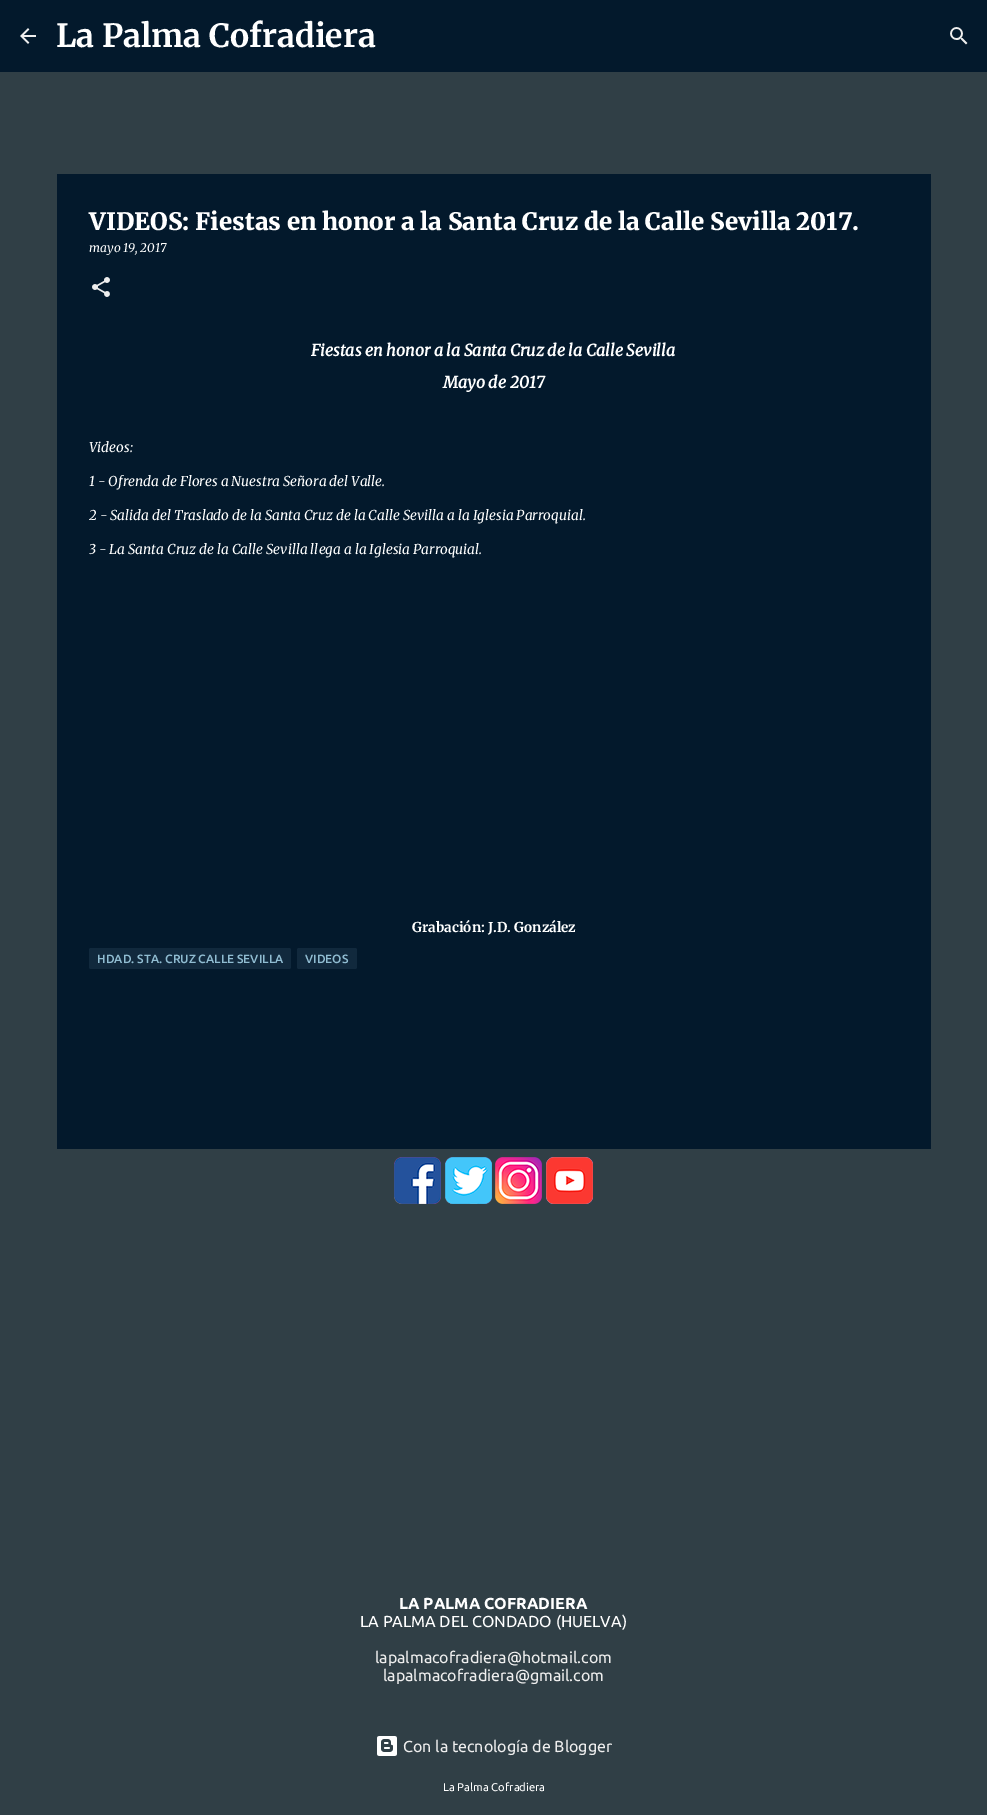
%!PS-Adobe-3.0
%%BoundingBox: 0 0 987 1815
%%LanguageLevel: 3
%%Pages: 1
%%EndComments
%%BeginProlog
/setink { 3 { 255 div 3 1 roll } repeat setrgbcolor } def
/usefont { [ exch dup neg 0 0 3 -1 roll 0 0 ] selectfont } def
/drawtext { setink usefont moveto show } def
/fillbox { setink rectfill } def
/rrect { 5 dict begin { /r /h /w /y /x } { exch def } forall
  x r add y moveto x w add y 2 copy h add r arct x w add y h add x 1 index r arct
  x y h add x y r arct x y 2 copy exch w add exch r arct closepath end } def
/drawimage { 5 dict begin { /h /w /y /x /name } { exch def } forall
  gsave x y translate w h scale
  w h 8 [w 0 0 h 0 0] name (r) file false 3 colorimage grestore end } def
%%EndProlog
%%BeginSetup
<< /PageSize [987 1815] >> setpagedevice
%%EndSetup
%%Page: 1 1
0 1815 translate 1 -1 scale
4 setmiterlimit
0 0 987 1815 48 63 70 fillbox
0 0 987 72 3 25 44 fillbox
(assets/img1.rgb) 20 28 16 16 drawimage
(La Palma Cofradiera) 56 47 /Merriweather-Bold 32 255 255 255 drawtext
(assets/img2.rgb) 950 27 18 18 drawimage
57 174 874 975 3 25 44 fillbox
(VIDEOS: Fiestas en honor a la Santa Cruz de la Calle Sevilla 2017.) 89 230 /Merriweather-Black 24 255 255 255 drawtext
(mayo 19, 2017) 89 252 /Merriweather-Italic 12 255 255 255 drawtext
(assets/img3.rgb) 92 277 18 20 drawimage
(Fiestas en honor a la Santa Cruz de la Calle Sevilla) 311 356 /Merriweather-BoldItalic 16 255 255 255 drawtext
(Mayo de 2017) 443 388 /Merriweather-BoldItalic 16 255 255 255 drawtext
(Videos:) 89 452 /Merriweather-Italic 13.6 255 255 255 drawtext
(1 - Ofrenda de Flores a Nuestra Señora del Valle.) 89 486 /Merriweather-Italic 13.6 255 255 255 drawtext
(2 - Salida del Traslado de la Santa Cruz de la Calle Sevilla a la Iglesia Parroquial.) 89 520 /Merriweather-Italic 13.6 255 255 255 drawtext
(3 - La Santa Cruz de la Calle Sevilla llega a la Iglesia Parroquial.) 89 554 /Merriweather-Italic 13.6 255 255 255 drawtext
(Grabación: J.D. González) 412 932 /Merriweather-Bold 13.6 255 255 255 drawtext
17 41 61 setink
89 948 202 21 2 rrect fill
(HDAD. STA. CRUZ CALLE SEVILLA) 97 963 /Ubuntu-Medium 12 144 188 209 drawtext
17 41 61 setink
297 948 60 21 2 rrect fill
(VIDEOS) 305 963 /Ubuntu-Medium 12 144 188 209 drawtext
(assets/img4.rgb) 394 1157 47 47 drawimage
(assets/img5.rgb) 445 1157 47 47 drawimage
(assets/img6.rgb) 495 1157 47 47 drawimage
(assets/img7.rgb) 546 1157 47 47 drawimage
(LA PALMA COFRADIERA) 399 1609 /Ubuntu-Bold 16 255 255 255 drawtext
(LA PALMA DEL CONDADO \(HUELVA\)) 360 1627 /Ubuntu-Regular 16 255 255 255 drawtext
(lapalmacofradiera@hotmail.com) 375 1663 /Ubuntu-Regular 16 238 238 238 drawtext
(lapalmacofradiera@gmail.com) 383 1681 /Ubuntu-Regular 16 238 238 238 drawtext
(assets/img8.rgb) 377 1736 20 20 drawimage
(Con la tecnología de Blogger) 403 1752 /Ubuntu-Regular 16 238 238 238 drawtext
(La Palma Cofradiera) 443 1791 /Ubuntu-Regular 11.25 255 255 255 drawtext
showpage
%%EOF
